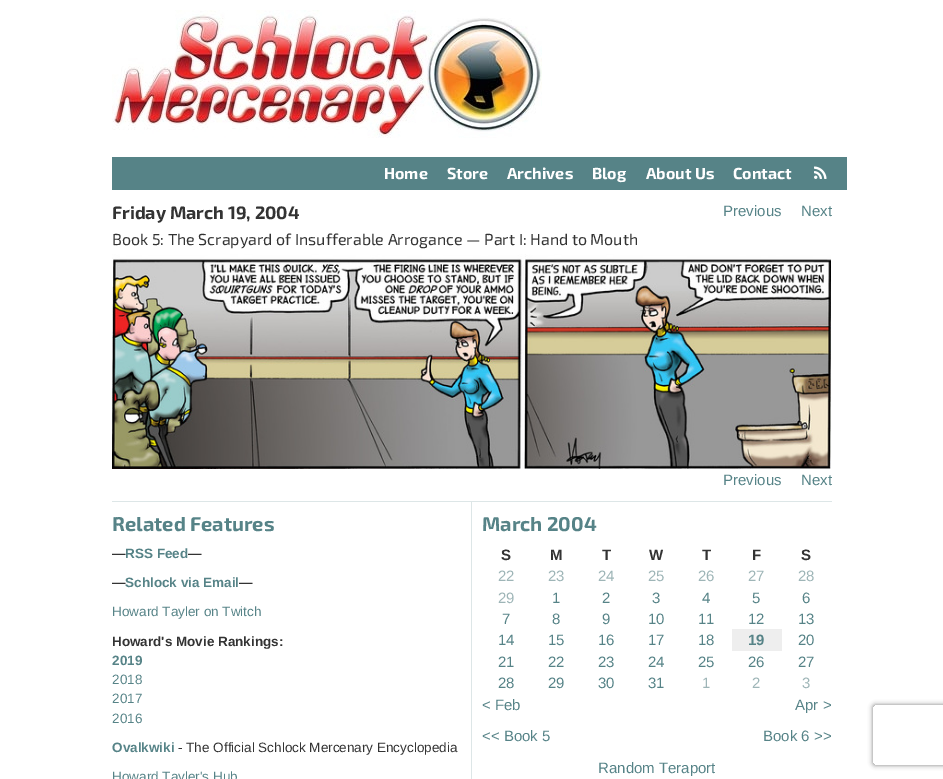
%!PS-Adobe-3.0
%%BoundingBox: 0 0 943 779
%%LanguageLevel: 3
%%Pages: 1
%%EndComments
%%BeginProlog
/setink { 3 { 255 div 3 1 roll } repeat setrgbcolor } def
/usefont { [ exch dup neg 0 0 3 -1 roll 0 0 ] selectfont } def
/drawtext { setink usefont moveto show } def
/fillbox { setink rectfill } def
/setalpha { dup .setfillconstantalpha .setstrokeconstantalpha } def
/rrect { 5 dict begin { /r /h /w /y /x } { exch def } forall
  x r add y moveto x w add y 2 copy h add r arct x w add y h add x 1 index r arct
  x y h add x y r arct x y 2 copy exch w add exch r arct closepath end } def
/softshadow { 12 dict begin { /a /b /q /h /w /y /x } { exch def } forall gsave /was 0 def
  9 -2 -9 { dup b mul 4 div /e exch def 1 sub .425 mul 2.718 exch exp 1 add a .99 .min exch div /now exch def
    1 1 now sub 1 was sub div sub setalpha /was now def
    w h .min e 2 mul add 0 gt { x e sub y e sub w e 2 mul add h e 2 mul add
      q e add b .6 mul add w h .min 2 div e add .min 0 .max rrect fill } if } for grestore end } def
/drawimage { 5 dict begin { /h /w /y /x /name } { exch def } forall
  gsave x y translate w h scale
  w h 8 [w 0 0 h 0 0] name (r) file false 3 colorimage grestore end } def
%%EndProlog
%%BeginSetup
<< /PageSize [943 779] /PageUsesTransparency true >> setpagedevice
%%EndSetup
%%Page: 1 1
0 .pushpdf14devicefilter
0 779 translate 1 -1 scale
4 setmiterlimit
0 0 943 779 255 255 255 fillbox
(assets/img1.rgb) 112 10 430 128 drawimage
112 157 735 33 86 131 135 fillbox
(Home) 384 179 /Exo2-Bold 16 255 255 255 drawtext
(Store) 447 179 /Exo2-Bold 16 255 255 255 drawtext
(Archives) 507 179 /Exo2-Bold 16 255 255 255 drawtext
(Blog) 592 179 /Exo2-Bold 16 255 255 255 drawtext
(About Us) 646 179 /Exo2-Bold 16 255 255 255 drawtext
(Contact) 733 179 /Exo2-Bold 16 255 255 255 drawtext
(assets/img2.rgb) 814 166 13 13 drawimage
(Friday March 19, 2004) 112 219 /Exo2-Bold 18 51 51 51 drawtext
(Book 5: The Scrapyard of Insufferable Arrogance — Part I: Hand to Mouth) 112 245 /Exo2-Regular 16 51 51 51 drawtext
(Previous) 723 216 /LiberationSans-Regular 15 86 131 135 drawtext
(Next) 801 216 /LiberationSans-Regular 15 86 131 135 drawtext
(assets/img3.rgb) 112 254 719 215 drawimage
(Previous) 723 485 /LiberationSans-Regular 15 86 131 135 drawtext
(Next) 801 485 /LiberationSans-Regular 15 86 131 135 drawtext
112 501 720 1 221 230 231 fillbox
471 502 1 277 221 230 231 fillbox
(Related Features) 112 531 /Exo2-Bold 20 86 131 135 drawtext
(—) 112 558 /LiberationSans-Bold 13.5 51 51 51 drawtext
(RSS Feed) 125 558 /LiberationSans-Bold 13.5 86 131 135 drawtext
(—) 188 558 /LiberationSans-Bold 13.5 51 51 51 drawtext
(—) 112 587 /LiberationSans-Bold 13.5 51 51 51 drawtext
(Schlock via Email) 125 587 /LiberationSans-Bold 13.5 86 131 135 drawtext
(—) 239 587 /LiberationSans-Bold 13.5 51 51 51 drawtext
(Howard Tayler on Twitch) 112 616 /LiberationSans-Regular 13.5 86 131 135 drawtext
(Howard's Movie Rankings:) 112 646 /LiberationSans-Bold 13.5 51 51 51 drawtext
(2019) 112 665 /LiberationSans-Bold 13.5 86 131 135 drawtext
(2018) 112 684 /LiberationSans-Regular 13.5 86 131 135 drawtext
(2017) 112 703 /LiberationSans-Regular 13.5 86 131 135 drawtext
(2016) 112 723 /LiberationSans-Regular 13.5 86 131 135 drawtext
(Ovalkwiki) 112 752 /LiberationSans-Bold 13.5 86 131 135 drawtext
(- The Official Schlock Mercenary Encyclopedia) 178 752 /LiberationSans-Regular 13.5 51 51 51 drawtext
(Howard Tayler's Hub) 112 781 /LiberationSans-Regular 13.5 86 131 135 drawtext
(March 2004) 482 531 /Exo2-Bold 20 86 131 135 drawtext
(S) 501 560 /LiberationSans-Bold 15 51 51 51 drawtext
(M) 550 560 /LiberationSans-Bold 15 51 51 51 drawtext
(T) 602 560 /LiberationSans-Bold 15 51 51 51 drawtext
(W) 649 560 /LiberationSans-Bold 15 51 51 51 drawtext
(T) 702 560 /LiberationSans-Bold 15 51 51 51 drawtext
(F) 752 560 /LiberationSans-Bold 15 51 51 51 drawtext
(S) 801 560 /LiberationSans-Bold 15 51 51 51 drawtext
(22) 498 581 /LiberationSans-Regular 15 158 181 183 drawtext
(23) 548 581 /LiberationSans-Regular 15 158 181 183 drawtext
(24) 598 581 /LiberationSans-Regular 15 158 181 183 drawtext
(25) 648 581 /LiberationSans-Regular 15 158 181 183 drawtext
(26) 698 581 /LiberationSans-Regular 15 158 181 183 drawtext
(27) 748 581 /LiberationSans-Regular 15 158 181 183 drawtext
(28) 798 581 /LiberationSans-Regular 15 158 181 183 drawtext
(29) 498 603 /LiberationSans-Regular 15 158 181 183 drawtext
(1) 552 603 /LiberationSans-Regular 15 86 131 135 drawtext
(2) 602 603 /LiberationSans-Regular 15 86 131 135 drawtext
(3) 652 603 /LiberationSans-Regular 15 86 131 135 drawtext
(4) 702 603 /LiberationSans-Regular 15 86 131 135 drawtext
(5) 752 603 /LiberationSans-Regular 15 86 131 135 drawtext
(6) 802 603 /LiberationSans-Regular 15 86 131 135 drawtext
(7) 502 624 /LiberationSans-Regular 15 86 131 135 drawtext
(8) 552 624 /LiberationSans-Regular 15 86 131 135 drawtext
(9) 602 624 /LiberationSans-Regular 15 86 131 135 drawtext
(10) 648 624 /LiberationSans-Regular 15 86 131 135 drawtext
(11) 698 624 /LiberationSans-Regular 15 86 131 135 drawtext
(12) 748 624 /LiberationSans-Regular 15 86 131 135 drawtext
(13) 798 624 /LiberationSans-Regular 15 86 131 135 drawtext
(14) 498 645 /LiberationSans-Regular 15 86 131 135 drawtext
(15) 548 645 /LiberationSans-Regular 15 86 131 135 drawtext
(16) 598 645 /LiberationSans-Regular 15 86 131 135 drawtext
(17) 648 645 /LiberationSans-Regular 15 86 131 135 drawtext
(18) 698 645 /LiberationSans-Regular 15 86 131 135 drawtext
732 629 50 22 238 238 238 fillbox
(19) 748 645 /LiberationSans-Bold 15 86 131 135 drawtext
(20) 798 645 /LiberationSans-Regular 15 86 131 135 drawtext
(21) 498 667 /LiberationSans-Regular 15 86 131 135 drawtext
(22) 548 667 /LiberationSans-Regular 15 86 131 135 drawtext
(23) 598 667 /LiberationSans-Regular 15 86 131 135 drawtext
(24) 648 667 /LiberationSans-Regular 15 86 131 135 drawtext
(25) 698 667 /LiberationSans-Regular 15 86 131 135 drawtext
(26) 748 667 /LiberationSans-Regular 15 86 131 135 drawtext
(27) 798 667 /LiberationSans-Regular 15 86 131 135 drawtext
(28) 498 688 /LiberationSans-Regular 15 86 131 135 drawtext
(29) 548 688 /LiberationSans-Regular 15 86 131 135 drawtext
(30) 598 688 /LiberationSans-Regular 15 86 131 135 drawtext
(31) 648 688 /LiberationSans-Regular 15 86 131 135 drawtext
(1) 702 688 /LiberationSans-Regular 15 158 181 183 drawtext
(2) 752 688 /LiberationSans-Regular 15 158 181 183 drawtext
(3) 802 688 /LiberationSans-Regular 15 158 181 183 drawtext
(< Feb) 482 710 /LiberationSans-Regular 15 86 131 135 drawtext
(Apr >) 795 710 /LiberationSans-Regular 15 86 131 135 drawtext
(<< Book 5) 482 741 /LiberationSans-Regular 15 86 131 135 drawtext
(Book 6 >>) 763 741 /LiberationSans-Regular 15 86 131 135 drawtext
(Random Teraport) 598 773 /LiberationSans-Regular 15 86 131 135 drawtext
gsave
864 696 moveto 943 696 lineto 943 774 lineto 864 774 lineto closepath 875 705 moveto 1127 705 lineto 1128 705 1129 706 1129 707 curveto 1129 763 lineto 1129 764 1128 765 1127 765 curveto 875 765 lineto 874 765 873 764 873 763 curveto 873 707 lineto 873 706 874 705 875 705 curveto closepath eoclip newpath
128 128 128 setink
873 705 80 60 2 2.5 1 softshadow
grestore
.poppdf14devicefilter showpage
%%EOF
